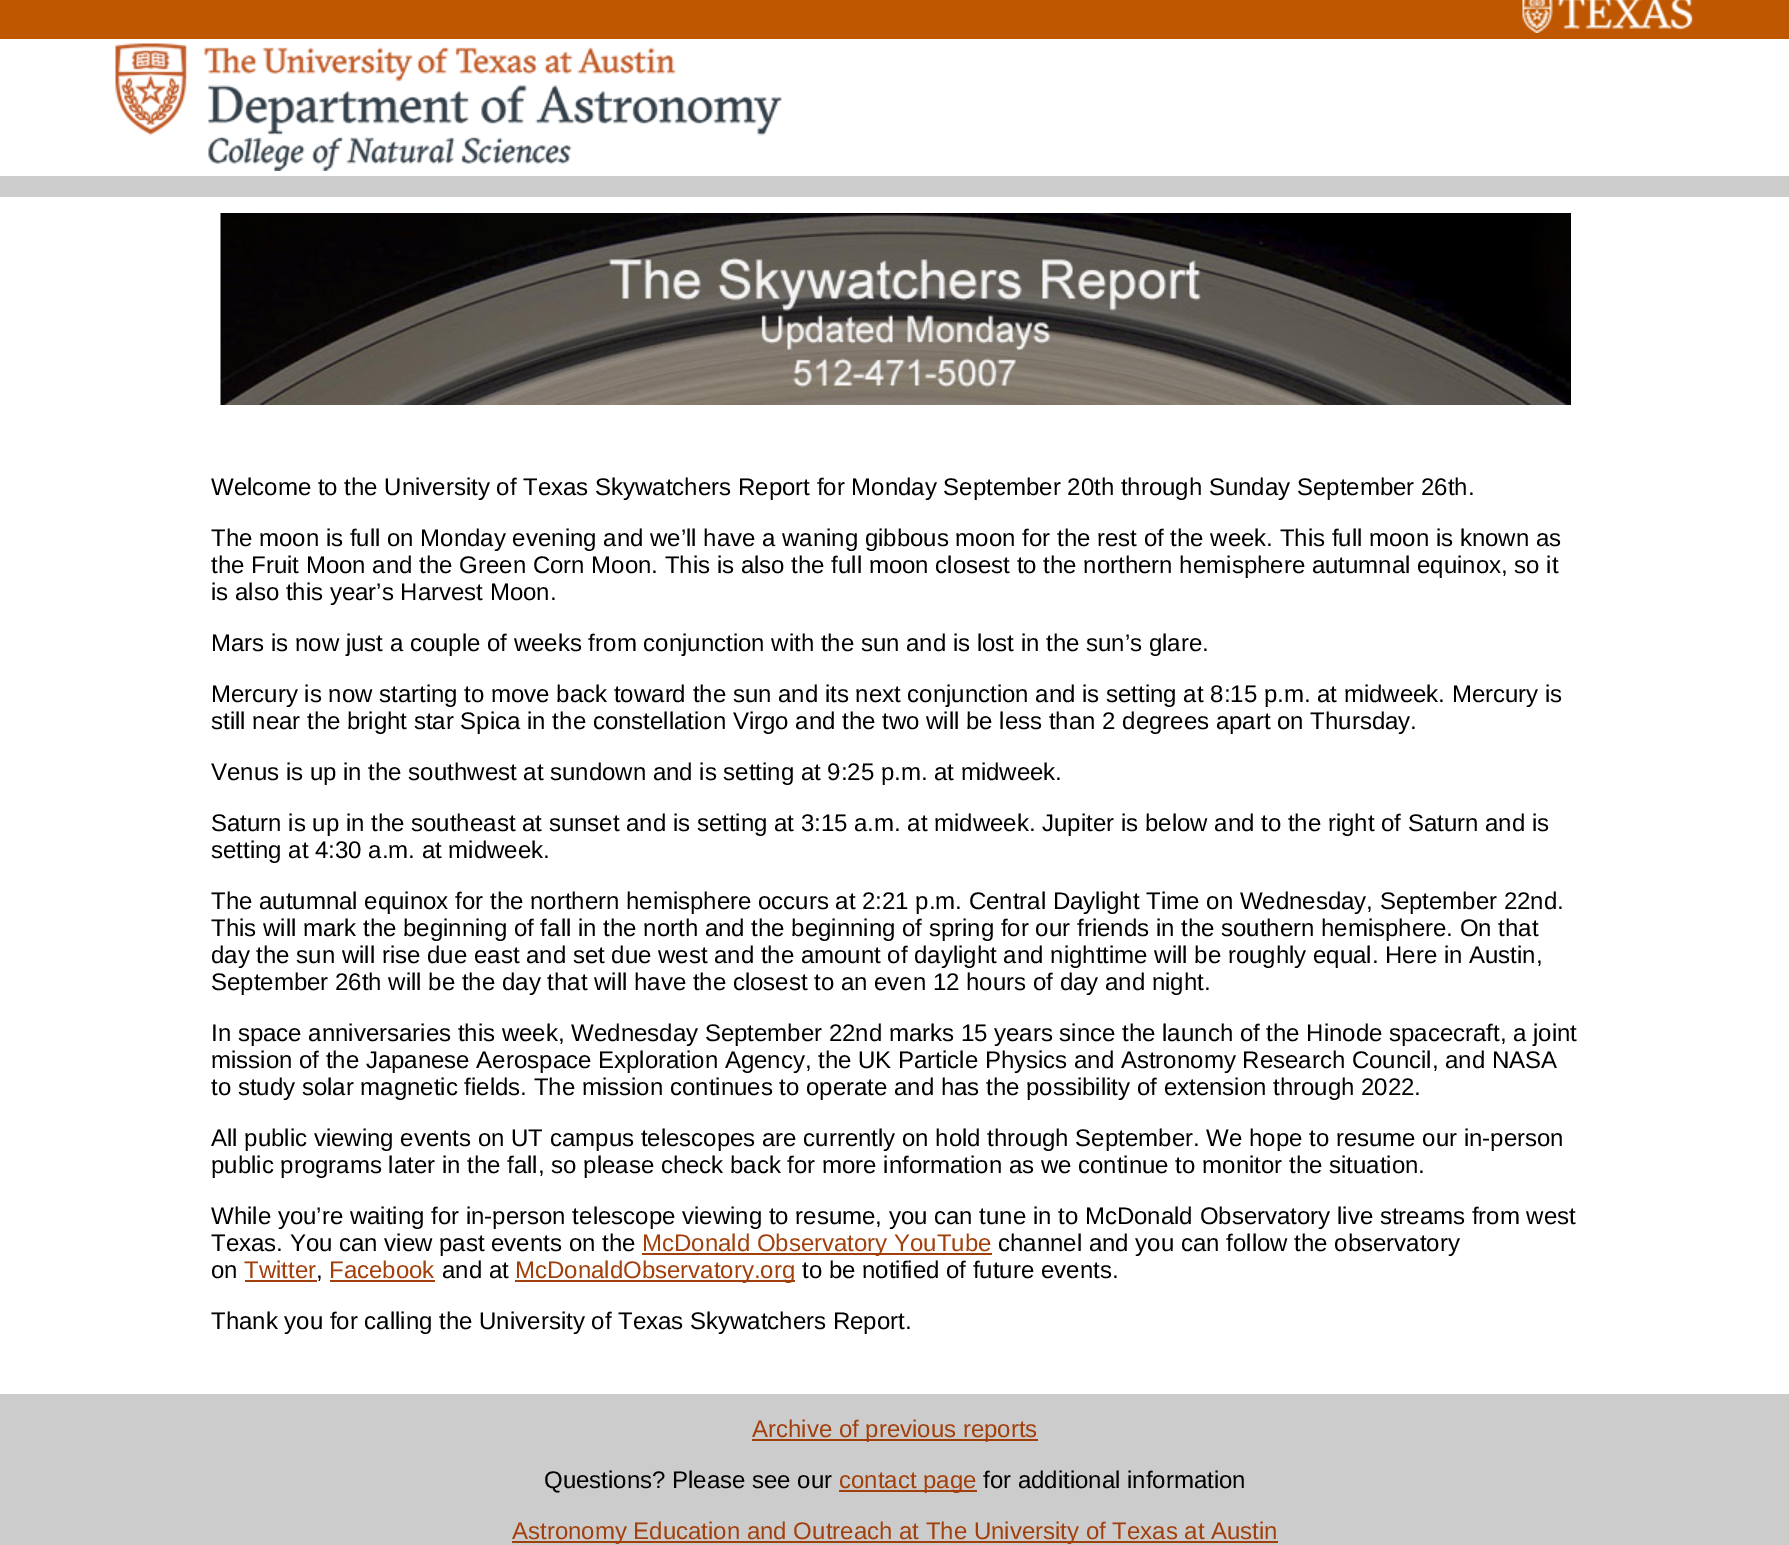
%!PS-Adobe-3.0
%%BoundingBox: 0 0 1789 1545
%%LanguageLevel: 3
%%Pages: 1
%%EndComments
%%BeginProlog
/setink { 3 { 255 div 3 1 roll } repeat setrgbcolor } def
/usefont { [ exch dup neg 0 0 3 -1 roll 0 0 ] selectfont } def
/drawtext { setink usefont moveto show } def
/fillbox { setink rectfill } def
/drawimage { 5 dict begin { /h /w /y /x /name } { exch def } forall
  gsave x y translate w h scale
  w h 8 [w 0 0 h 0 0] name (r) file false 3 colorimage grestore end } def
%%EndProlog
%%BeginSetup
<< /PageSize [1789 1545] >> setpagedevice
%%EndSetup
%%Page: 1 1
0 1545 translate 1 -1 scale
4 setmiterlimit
0 0 1789 1545 255 255 255 fillbox
0 0 1789 39 191 87 0 fillbox
(assets/img1.rgb) 1522 0 171 33 drawimage
(assets/img2.rgb) 115 43 667 128 drawimage
0 176 1789 21 204 204 204 fillbox
1570 213 1 192 0 0 0 fillbox
(assets/img3.rgb) 220 213 1351 192 drawimage
(Welcome to the University of Texas Skywatchers Report for Monday September 20th through Sunday September 26th.) 211 495 /LiberationSans-Regular 24 0 0 0 drawtext
(The moon is full on Monday evening and we’ll have a waning gibbous moon for the rest of the week. This full moon is known as) 211 546 /LiberationSans-Regular 24 0 0 0 drawtext
(the Fruit Moon and the Green Corn Moon. This is also the full moon closest to the northern hemisphere autumnal equinox, so it) 211 573 /LiberationSans-Regular 24 0 0 0 drawtext
(is also this year’s Harvest Moon.) 211 600 /LiberationSans-Regular 24 0 0 0 drawtext
(Mars is now just a couple of weeks from conjunction with the sun and is lost in the sun’s glare.) 211 651 /LiberationSans-Regular 24 0 0 0 drawtext
(Mercury is now starting to move back toward the sun and its next conjunction and is setting at 8:15 p.m. at midweek. Mercury is) 211 702 /LiberationSans-Regular 24 0 0 0 drawtext
(still near the bright star Spica in the constellation Virgo and the two will be less than 2 degrees apart on Thursday.) 211 729 /LiberationSans-Regular 24 0 0 0 drawtext
(Venus is up in the southwest at sundown and is setting at 9:25 p.m. at midweek.) 211 780 /LiberationSans-Regular 24 0 0 0 drawtext
(Saturn is up in the southeast at sunset and is setting at 3:15 a.m. at midweek. Jupiter is below and to the right of Saturn and is) 211 831 /LiberationSans-Regular 24 0 0 0 drawtext
(setting at 4:30 a.m. at midweek.) 211 858 /LiberationSans-Regular 24 0 0 0 drawtext
(The autumnal equinox for the northern hemisphere occurs at 2:21 p.m. Central Daylight Time on Wednesday, September 22nd.) 211 909 /LiberationSans-Regular 24 0 0 0 drawtext
(This will mark the beginning of fall in the north and the beginning of spring for our friends in the southern hemisphere. On that) 211 936 /LiberationSans-Regular 24 0 0 0 drawtext
(day the sun will rise due east and set due west and the amount of daylight and nighttime will be roughly equal. Here in Austin,) 211 963 /LiberationSans-Regular 24 0 0 0 drawtext
(September 26th will be the day that will have the closest to an even 12 hours of day and night.) 211 990 /LiberationSans-Regular 24 0 0 0 drawtext
(In space anniversaries this week, Wednesday September 22nd marks 15 years since the launch of the Hinode spacecraft, a joint) 211 1041 /LiberationSans-Regular 24 0 0 0 drawtext
(mission of the Japanese Aerospace Exploration Agency, the UK Particle Physics and Astronomy Research Council, and NASA) 211 1068 /LiberationSans-Regular 24 0 0 0 drawtext
(to study solar magnetic fields. The mission continues to operate and has the possibility of extension through 2022.) 211 1095 /LiberationSans-Regular 24 0 0 0 drawtext
(All public viewing events on UT campus telescopes are currently on hold through September. We hope to resume our in-person) 211 1146 /LiberationSans-Regular 24 0 0 0 drawtext
(public programs later in the fall, so please check back for more information as we continue to monitor the situation.) 211 1173 /LiberationSans-Regular 24 0 0 0 drawtext
(While you’re waiting for in-person telescope viewing to resume, you can tune in to McDonald Observatory live streams from west) 211 1224 /LiberationSans-Regular 24 0 0 0 drawtext
(Texas. You can view past events on the) 211 1251 /LiberationSans-Regular 24 0 0 0 drawtext
642 1253 350 2 161 64 12 fillbox
(McDonald Observatory YouTube) 642 1251 /LiberationSans-Regular 24 161 64 12 drawtext
(channel and you can follow the observatory) 998 1251 /LiberationSans-Regular 24 0 0 0 drawtext
(on) 211 1278 /LiberationSans-Regular 24 0 0 0 drawtext
(Twitter) 244 1278 /LiberationSans-Regular 24 161 64 12 drawtext
245 1280 72 2 161 64 12 fillbox
(,) 316 1278 /LiberationSans-Regular 24 0 0 0 drawtext
(Facebook) 329 1278 /LiberationSans-Regular 24 161 64 12 drawtext
330 1280 105 2 161 64 12 fillbox
(and at) 442 1278 /LiberationSans-Regular 24 0 0 0 drawtext
515 1280 280 2 161 64 12 fillbox
(McDonaldObservatory.org) 515 1278 /LiberationSans-Regular 24 161 64 12 drawtext
(to be notified of future events.) 802 1278 /LiberationSans-Regular 24 0 0 0 drawtext
(Thank you for calling the University of Texas Skywatchers Report.) 211 1329 /LiberationSans-Regular 24 0 0 0 drawtext
0 1394 1789 151 204 204 204 fillbox
752 1439 286 2 161 64 12 fillbox
(Archive of previous reports) 752 1437 /LiberationSans-Regular 24 161 64 12 drawtext
(Questions? Please see our) 544 1488 /LiberationSans-Regular 24 0 0 0 drawtext
839 1490 138 2 161 64 12 fillbox
(contact page) 839 1488 /LiberationSans-Regular 24 161 64 12 drawtext
(for additional information) 983 1488 /LiberationSans-Regular 24 0 0 0 drawtext
512 1541 766 2 161 64 12 fillbox
(Astronomy Education and Outreach at The University of Texas at Austin) 512 1539 /LiberationSans-Regular 24 161 64 12 drawtext
showpage
%%EOF
